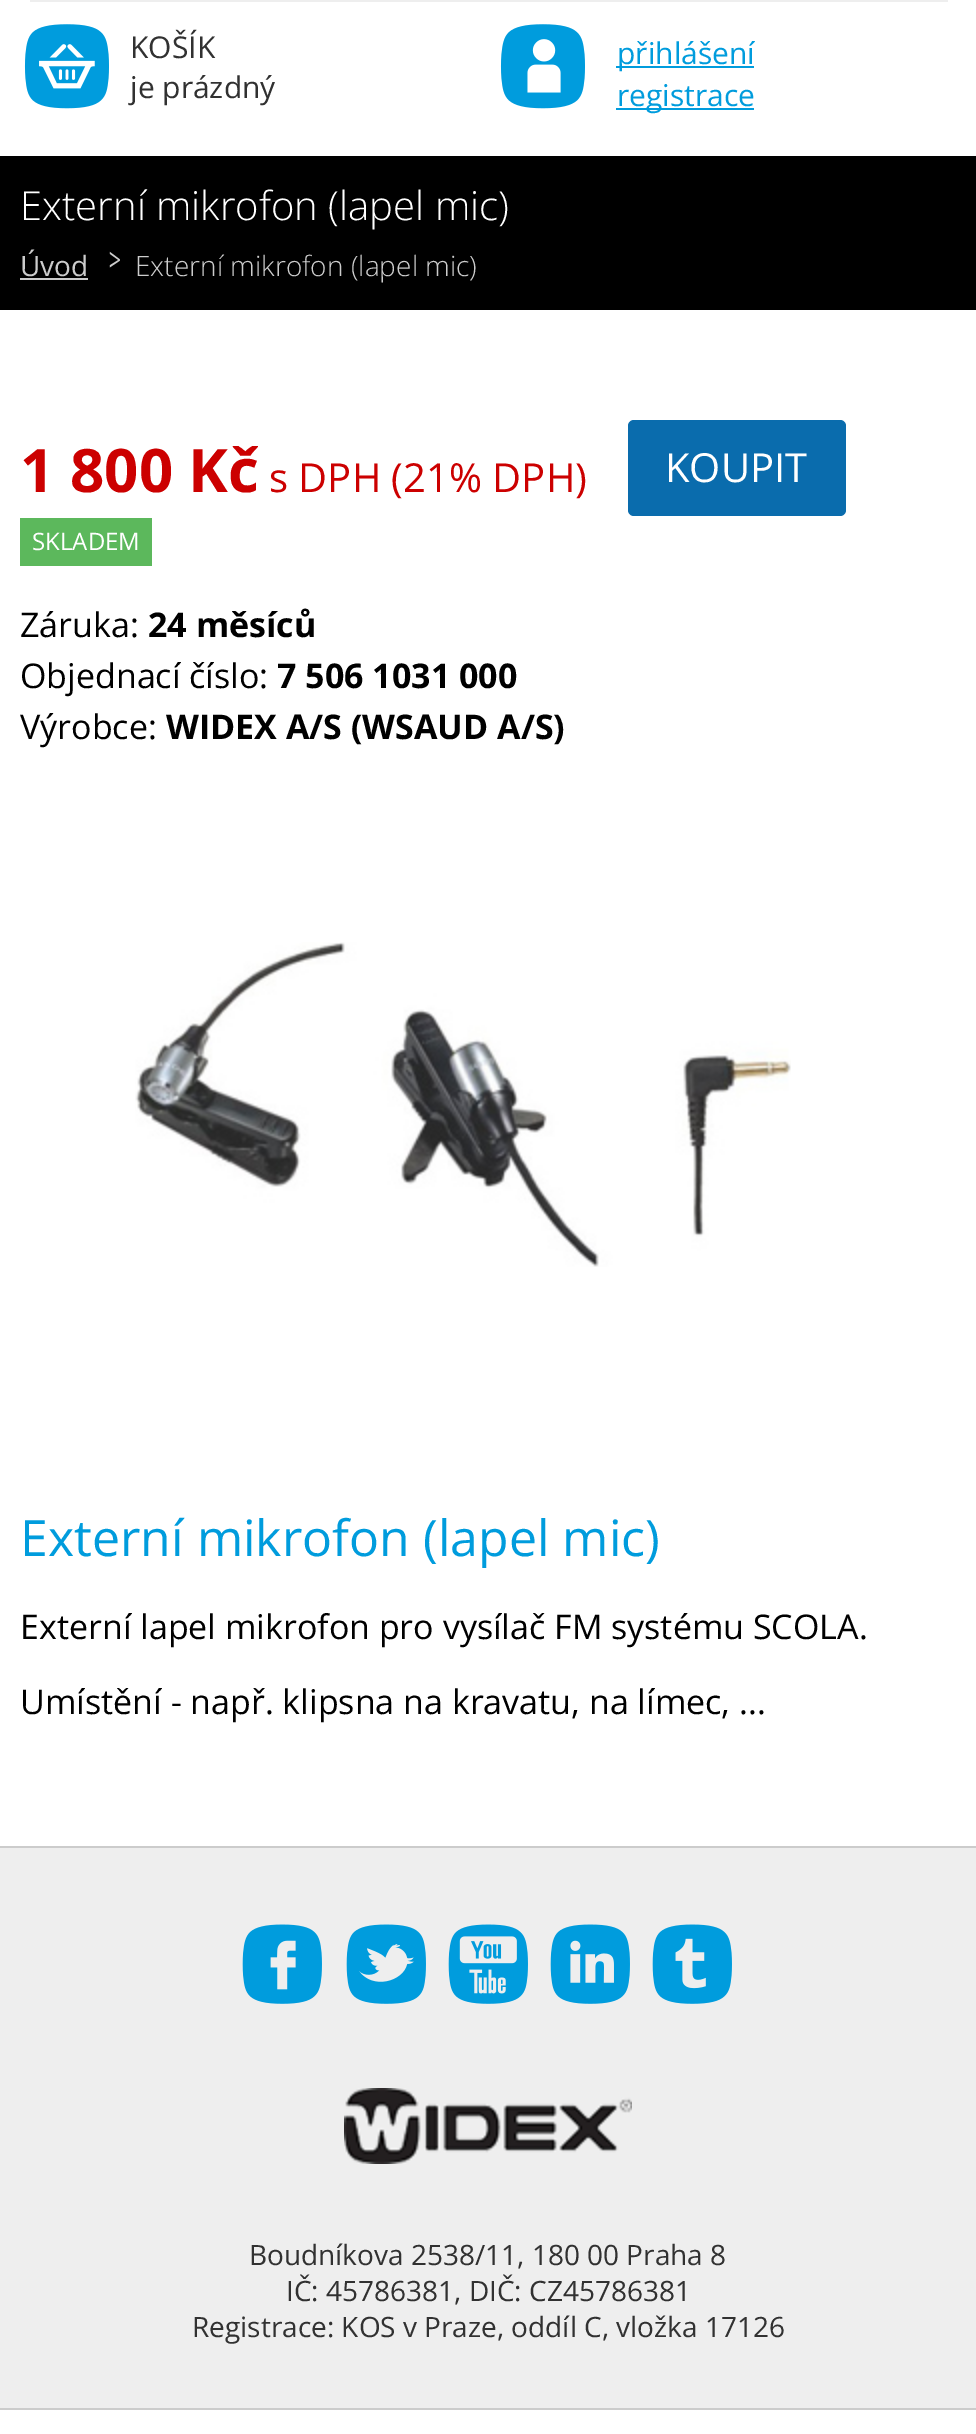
%!PS-Adobe-3.0
%%BoundingBox: 0 0 976 2434
%%LanguageLevel: 3
%%Pages: 1
%%EndComments
%%BeginProlog
/setink { 3 { 255 div 3 1 roll } repeat setrgbcolor } def
/usefont { [ exch dup neg 0 0 3 -1 roll 0 0 ] selectfont } def
/drawtext { setink usefont moveto show } def
/fillbox { setink rectfill } def
/rrect { 5 dict begin { /r /h /w /y /x } { exch def } forall
  x r add y moveto x w add y 2 copy h add r arct x w add y h add x 1 index r arct
  x y h add x y r arct x y 2 copy exch w add exch r arct closepath end } def
/drawimage { 5 dict begin { /h /w /y /x /name } { exch def } forall
  gsave x y translate w h scale
  w h 8 [w 0 0 h 0 0] name (r) file false 3 colorimage grestore end } def
%%EndProlog
%%BeginSetup
<< /PageSize [976 2434] >> setpagedevice
%%EndSetup
%%Page: 1 1
0 2434 translate 1 -1 scale
4 setmiterlimit
0 0 976 2434 255 255 255 fillbox
30 0 918 2 238 238 238 fillbox
(assets/img1.rgb) 24 24 85 85 drawimage
(KOŠÍK) 130 58 /OpenSans-Regular 30 49 49 49 drawtext
(je prázdný) 130 98 /OpenSans-Regular 30 49 49 49 drawtext
(assets/img2.rgb) 500 24 85 85 drawimage
616 66 138 2 0 156 221 fillbox
(přihlášení) 617 64 /OpenSans-Regular 30 0 156 221 drawtext
616 108 138 2 0 156 221 fillbox
(registrace) 617 106 /OpenSans-Regular 30 0 156 221 drawtext
0 156 976 154 0 0 0 fillbox
(Externí mikrofon \(lapel mic\)) 20 220 /OpenSans-Light 40 255 255 255 drawtext
(Úvod) 20 276 /OpenSans-Regular 28 204 204 204 drawtext
20 278 68 2 204 204 204 fillbox
(assets/img3.rgb) 109 251 11 17 drawimage
(Externí mikrofon \(lapel mic\)) 135 276 /OpenSans-Light 28 204 204 204 drawtext
(1 800 Kč) 20 492 /OpenSans-Bold 60 204 0 0 drawtext
(s DPH \(21% DPH\)) 269 492 /OpenSans-Regular 40 204 0 0 drawtext
10 108 173 setink
628 420 218 96 6 rrect fill
(KOUPIT) 665 482 /OpenSans-Regular 40 255 255 255 drawtext
20 518 132 48 92 184 92 fillbox
(SKLADEM) 32 550 /OpenSans-Regular 24 255 255 255 drawtext
(Záruka:) 20 637 /OpenSans-Regular 34 0 0 0 drawtext
(24 měsíců) 148 637 /OpenSans-Bold 34 0 0 0 drawtext
(Objednací číslo:) 20 688 /OpenSans-Regular 34 0 0 0 drawtext
(7 506 1031 000) 277 688 /OpenSans-Bold 34 0 0 0 drawtext
(Výrobce:) 20 739 /OpenSans-Regular 34 0 0 0 drawtext
(WIDEX A/S \(WSAUD A/S\)) 166 739 /OpenSans-Bold 34 0 0 0 drawtext
(assets/img4.rgb) 135 942 656 325 drawimage
(Externí mikrofon \(lapel mic\)) 20 1556 /OpenSans-Regular 50 0 156 221 drawtext
(Externí lapel mikrofon pro vysílač FM systému SCOLA.) 20 1639 /OpenSans-Regular 34 0 0 0 drawtext
(Umístění - např. klipsna na kravatu, na límec, ...) 20 1714 /OpenSans-Regular 34 0 0 0 drawtext
0 1848 976 560 238 238 238 fillbox
0 1846 976 2 204 204 204 fillbox
(assets/img5.rgb) 242 1924 80 80 drawimage
(assets/img6.rgb) 346 1924 80 80 drawimage
(assets/img7.rgb) 448 1924 80 80 drawimage
(assets/img8.rgb) 550 1924 80 80 drawimage
(assets/img9.rgb) 652 1924 80 80 drawimage
0 2408 976 2 204 204 204 fillbox
(assets/img10.rgb) 344 2088 288 76 drawimage
(Boudníkova 2538/11, 180 00 Praha 8) 249 2265 /OpenSans-Regular 28 49 49 49 drawtext
(IČ: 45786381, DIČ: CZ45786381) 286 2301 /OpenSans-Regular 28 49 49 49 drawtext
(Registrace: KOS v Praze, oddíl C, vložka 17126) 192 2337 /OpenSans-Regular 28 49 49 49 drawtext
showpage
%%EOF
